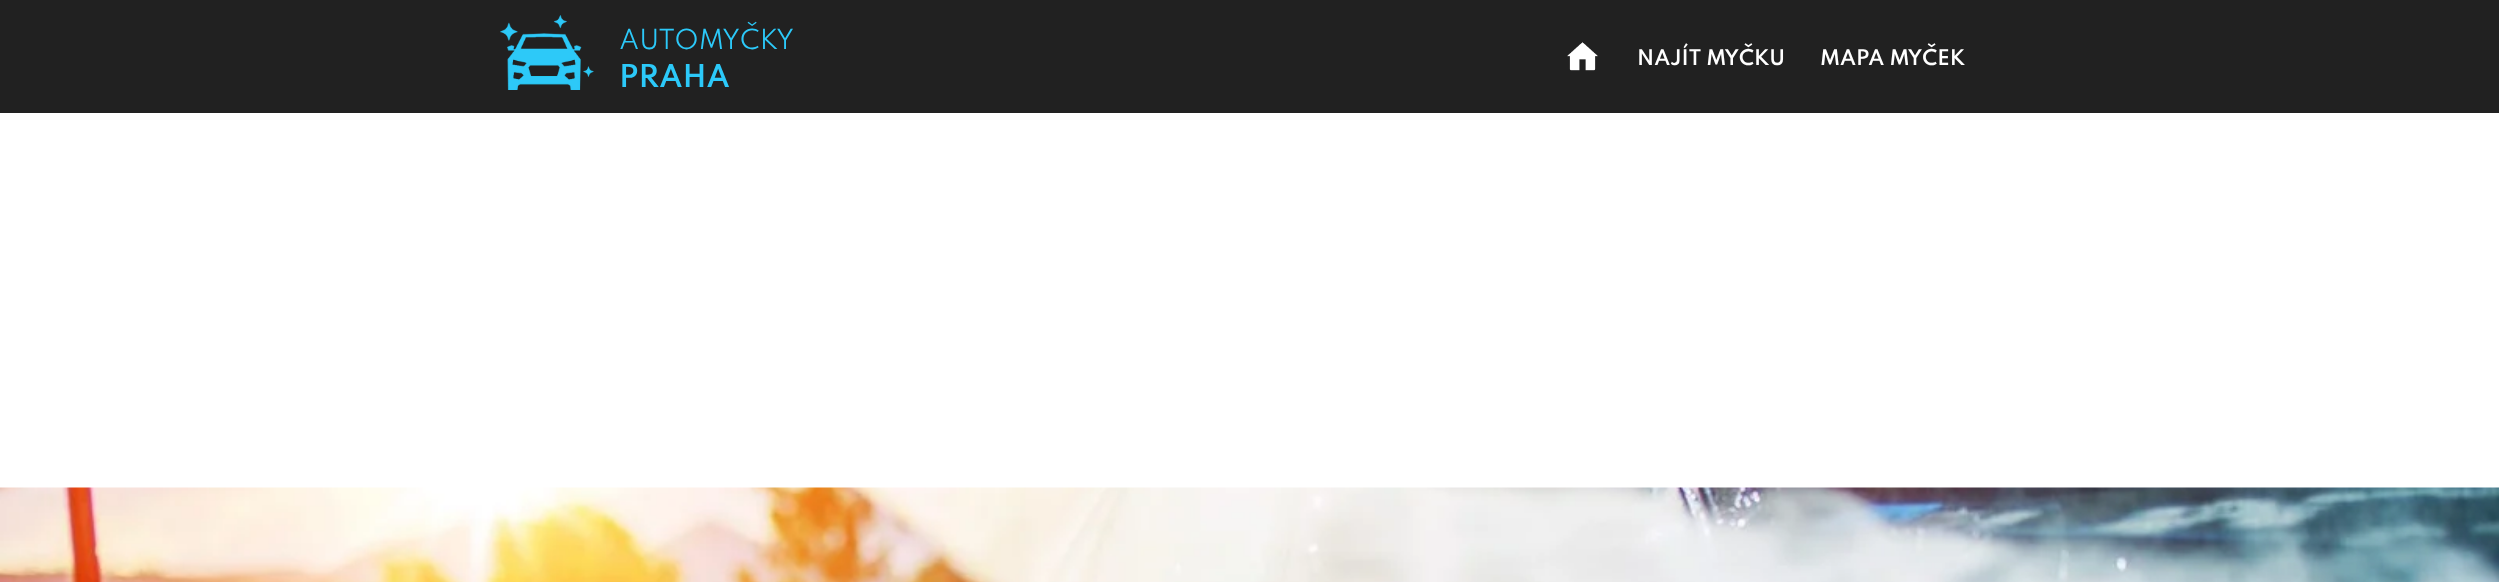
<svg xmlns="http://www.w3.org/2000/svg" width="2499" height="582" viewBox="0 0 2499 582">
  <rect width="100%" height="100%" fill="#ffffff"/>
  <rect x="0" y="0" width="2499" height="113" fill="#212121"/>
  <image x="500" y="15" width="94" height="75" href="img1.png"/>
  <text x="619" y="49" font-family="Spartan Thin" font-size="24.5" fill="#2cc9f9">AUTOMYČKY</text>
  <text x="619" y="87" font-family="Spartan Thin" font-size="28" font-weight="600" fill="#2cc9f9">PRAHA</text>
  <image x="1567" y="42" width="31" height="29" href="img2.png"/>
  <text x="1637" y="65" font-family="Spartan Thin" font-size="19.25" font-weight="600" fill="#ffffff">NAJÍT MYČKU</text>
  <text x="1820" y="65" font-family="Spartan Thin" font-size="19.25" font-weight="600" fill="#ffffff">MAPA MYČEK</text>
  <image x="0" y="487" width="2499" height="95" href="img3.png"/>
</svg>
